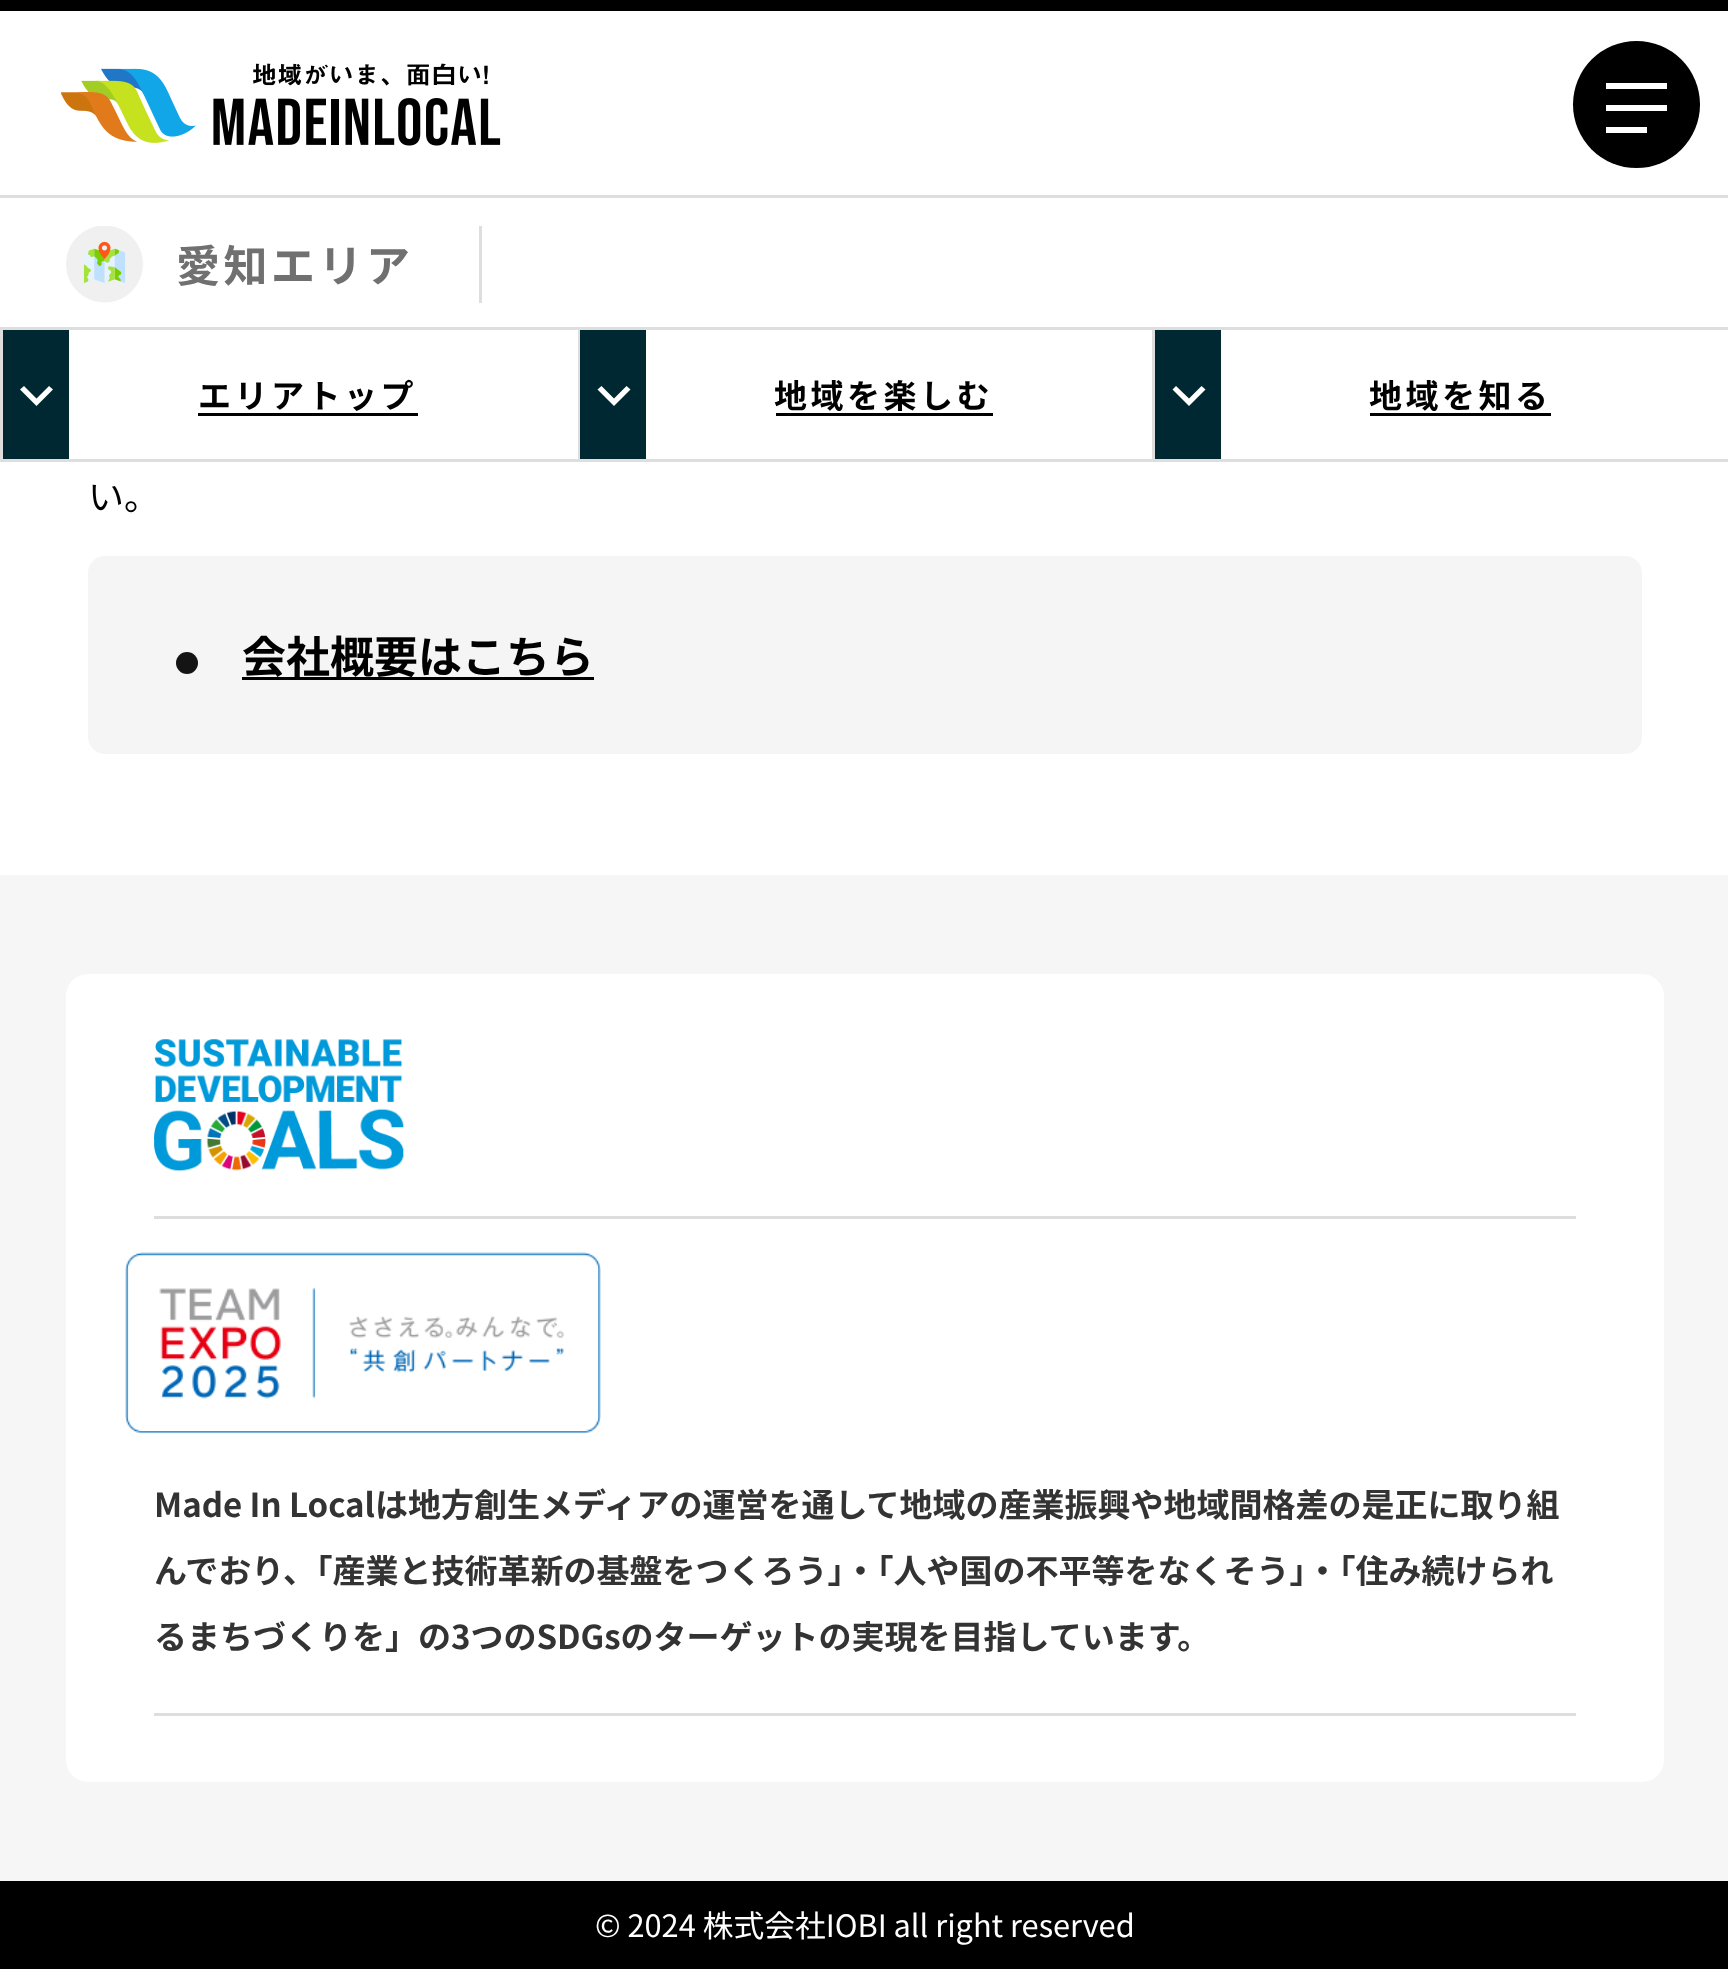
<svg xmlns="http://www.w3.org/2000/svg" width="1728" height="1980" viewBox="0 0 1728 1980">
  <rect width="100%" height="100%" fill="#ffffff"/>
  <rect x="0" y="0" width="1728" height="11" fill="#000000"/>
  <rect x="0" y="195" width="1728" height="3" fill="#dedede"/>
  <image x="61" y="63" width="440" height="83" href="img1.png"/>
  <circle cx="1636.5" cy="104.5" r="63.5" fill="#000000"/>
  <rect x="1606" y="83" width="61" height="6" fill="#ffffff"/>
  <rect x="1606" y="105" width="61" height="6" fill="#ffffff"/>
  <rect x="1606" y="127" width="41" height="6" fill="#ffffff"/>
  <rect x="0" y="327" width="1728" height="3" fill="#dedede"/>
  <rect x="479" y="226" width="3" height="77" fill="#dedede"/>
  <image x="66" y="226" width="77" height="77" href="img2.png"/>
  <text x="176" y="282" font-family="Noto Sans JP" font-size="44" font-weight="bold" letter-spacing="3.5" fill="#707070">愛知エリア</text>
  <rect x="0" y="459" width="1728" height="3" fill="#dedede"/>
  <rect x="0" y="330" width="3" height="129" fill="#dedede"/>
  <rect x="3" y="330" width="66" height="129" fill="#002832"/>
  <path d="M53 389.5L49 386L36.5 398.5L24 386L20 389.5L36.5 406Z" fill="#ffffff"/>
  <text x="198" y="408" font-family="Noto Sans JP" font-size="33" font-weight="bold" letter-spacing="3.5" fill="#000000">エリアトップ</text>
  <rect x="198" y="413" width="220" height="3" fill="#000000"/>
  <rect x="578" y="330" width="2" height="129" fill="#dedede"/>
  <rect x="580" y="330" width="66" height="129" fill="#002832"/>
  <path d="M630.5 389.5L626.5 386L614 398.5L601.5 386L597.5 389.5L614 406Z" fill="#ffffff"/>
  <text x="774" y="408" font-family="Noto Sans JP" font-size="33" font-weight="bold" letter-spacing="3.5" fill="#000000">地域を楽しむ</text>
  <rect x="776" y="413" width="217" height="3" fill="#000000"/>
  <rect x="1152" y="330" width="3" height="129" fill="#dedede"/>
  <rect x="1155" y="330" width="66" height="129" fill="#002832"/>
  <path d="M1205.5 389.5L1201.5 386L1189 398.5L1176 386L1172.5 389.5L1189 406Z" fill="#ffffff"/>
  <text x="1369" y="408" font-family="Noto Sans JP" font-size="33" font-weight="bold" letter-spacing="3.5" fill="#000000">地域を知る</text>
  <rect x="1370" y="413" width="181" height="3" fill="#000000"/>
  <text x="88" y="510" font-family="Noto Sans JP" font-size="36" fill="#000000">い。</text>
  <rect x="88" y="556" width="1554" height="198" rx="17" fill="#f5f5f5"/>
  <circle cx="187" cy="663" r="11" fill="#141414"/>
  <rect x="242" y="677" width="352" height="3" fill="#000000"/>
  <text x="242" y="673" font-family="Noto Sans JP" font-size="44" font-weight="bold" fill="#000000">会社概要はこちら</text>
  <rect x="0" y="875" width="1728" height="1006" fill="#f6f6f6"/>
  <rect x="66" y="974" width="1598" height="808" rx="22" fill="#ffffff"/>
  <image x="154" y="1039" width="250" height="133" href="img3.png"/>
  <rect x="154" y="1216" width="1422" height="3" fill="#dedede"/>
  <image x="125" y="1252" width="476" height="182" href="img4.png"/>
  <rect x="154" y="1713" width="1422" height="3" fill="#dedede"/>
  <text x="154" y="1517" font-family="Noto Sans JP" font-size="33" font-weight="bold" fill="#333333">Made In Localは地方創生メディアの運営を通して地域の産業振興や地域間格差の是正に取り組</text>
  <text x="154" y="1583" font-family="Noto Sans JP" font-size="33" font-weight="bold" fill="#333333">んでおり、「産業と技術革新の基盤をつくろう」・「人や国の不平等をなくそう」・「住み続けられ</text>
  <text x="154" y="1649" font-family="Noto Sans JP" font-size="33" font-weight="bold" fill="#333333">るまちづくりを」の3つのSDGsのターゲットの実現を目指しています。</text>
  <rect x="0" y="1881" width="1728" height="88" fill="#000000"/>
  <text x="595" y="1937" font-family="Noto Sans JP" font-size="30.75" fill="#ffffff">©︎ 2024 株式会社IOBI all right reserved</text>
</svg>
